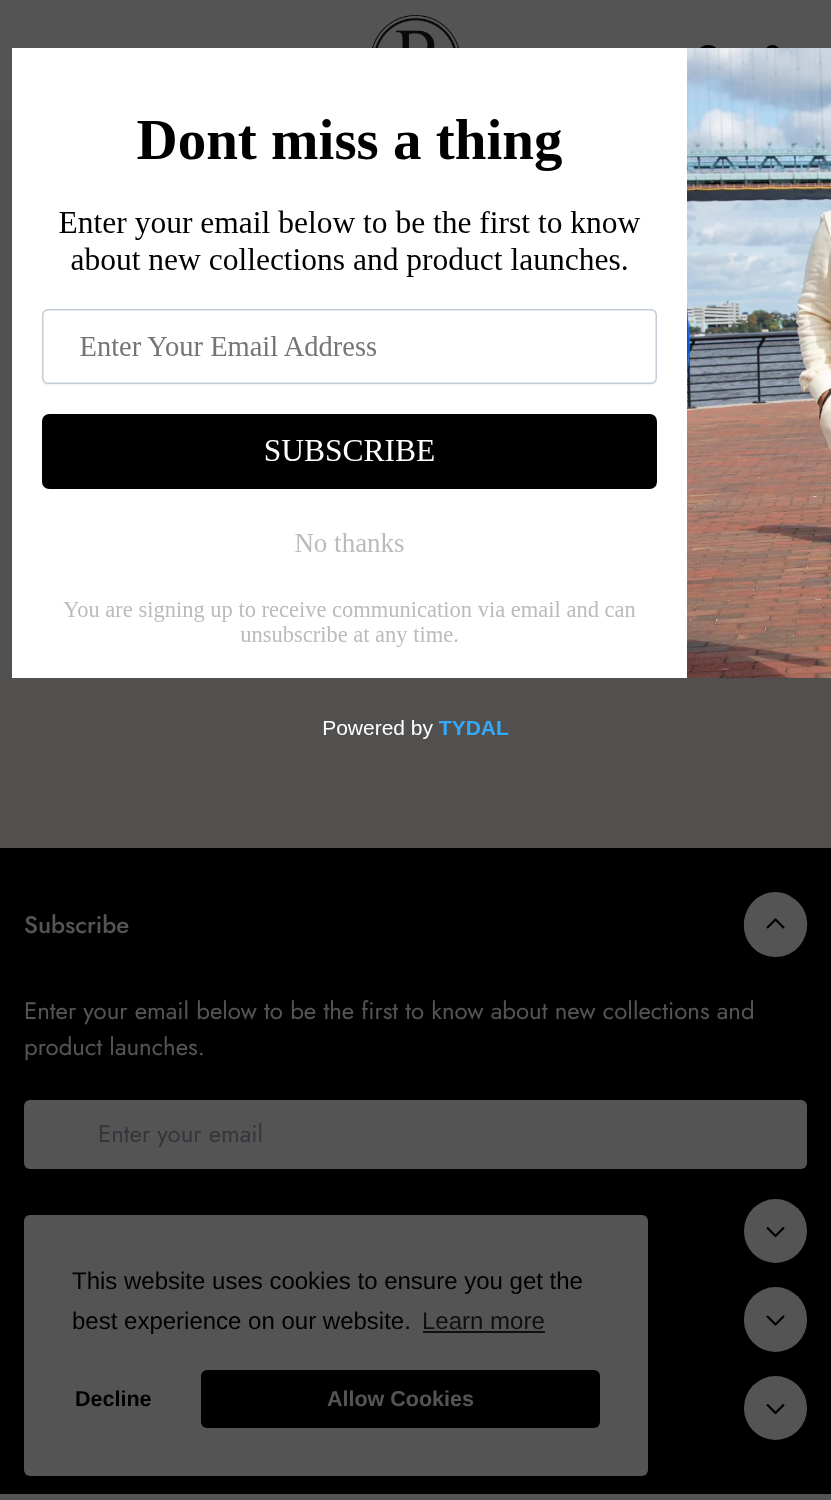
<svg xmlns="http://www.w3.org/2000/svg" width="831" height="1500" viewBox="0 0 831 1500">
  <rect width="100%" height="100%" fill="#ffffff"/>
  <image x="371" y="15" width="89" height="33" href="img2.png"/>
  <image x="700" y="45" width="16" height="3" href="img3.png"/>
  <image x="766" y="45" width="13" height="3" href="img4.png"/>
  <rect x="0" y="120" width="831" height="728" fill="#f5f1ed"/>
  <rect x="0" y="848" width="831" height="646" fill="#000000"/>
  <text x="24" y="933" font-family="Jost" font-size="24" font-weight="500" fill="#ffffff">Subscribe</text>
  <path d="M776 957C807 957 819 915 793 898C788 894 782 892 776 892C744 892 732 934 758 952C763 955 769 957 776 957Z" fill="#ffffff"/>
  <image x="766" y="918" width="19" height="11" href="img5.png"/>
  <text x="24" y="1019" font-family="Jost" font-size="24" fill="#ffffff">Enter your email below to be the first to know about new collections and</text>
  <text x="24" y="1055" font-family="Jost" font-size="24" fill="#ffffff">product launches.</text>
  <rect x="24" y="1100" width="783" height="69" rx="6" fill="#ffffff"/>
  <text x="98" y="1142" font-family="Jost" font-size="24" fill="#9ca3af">Enter your email</text>
  <rect x="744" y="1199" width="63" height="64" rx="31.5" fill="#ffffff"/>
  <image x="766" y="1227" width="19" height="11" href="img6.png"/>
  <rect x="744" y="1287" width="63" height="65" rx="31.5" fill="#ffffff"/>
  <image x="766" y="1315" width="19" height="11" href="img7.png"/>
  <rect x="744" y="1376" width="63" height="64" rx="31.5" fill="#ffffff"/>
  <image x="766" y="1404" width="19" height="11" href="img6.png"/>
  <rect x="24" y="1215" width="624" height="261" rx="6" fill="#ffffff"/>
  <text x="72" y="1289" font-family="Liberation Sans" font-size="24" fill="#000000">This website uses cookies to ensure you get the</text>
  <text x="72" y="1329" font-family="Liberation Sans" font-size="24" fill="#000000">best experience on our website.</text>
  <text x="422" y="1329" font-family="Liberation Sans" font-size="24" fill="#333333">Learn more</text>
  <rect x="423" y="1331" width="122" height="2" fill="#333333"/>
  <text x="75" y="1406" font-family="Liberation Sans" font-size="21.5" font-weight="bold" fill="#000000">Decline</text>
  <rect x="201" y="1370" width="399" height="58" rx="6" fill="#000000"/>
  <text x="327" y="1406" font-family="Liberation Sans" font-size="21.5" font-weight="bold" fill="#ffffff">Allow Cookies</text>
  <image x="0" y="0" width="831" height="1500" href="img1.png"/>
</svg>
